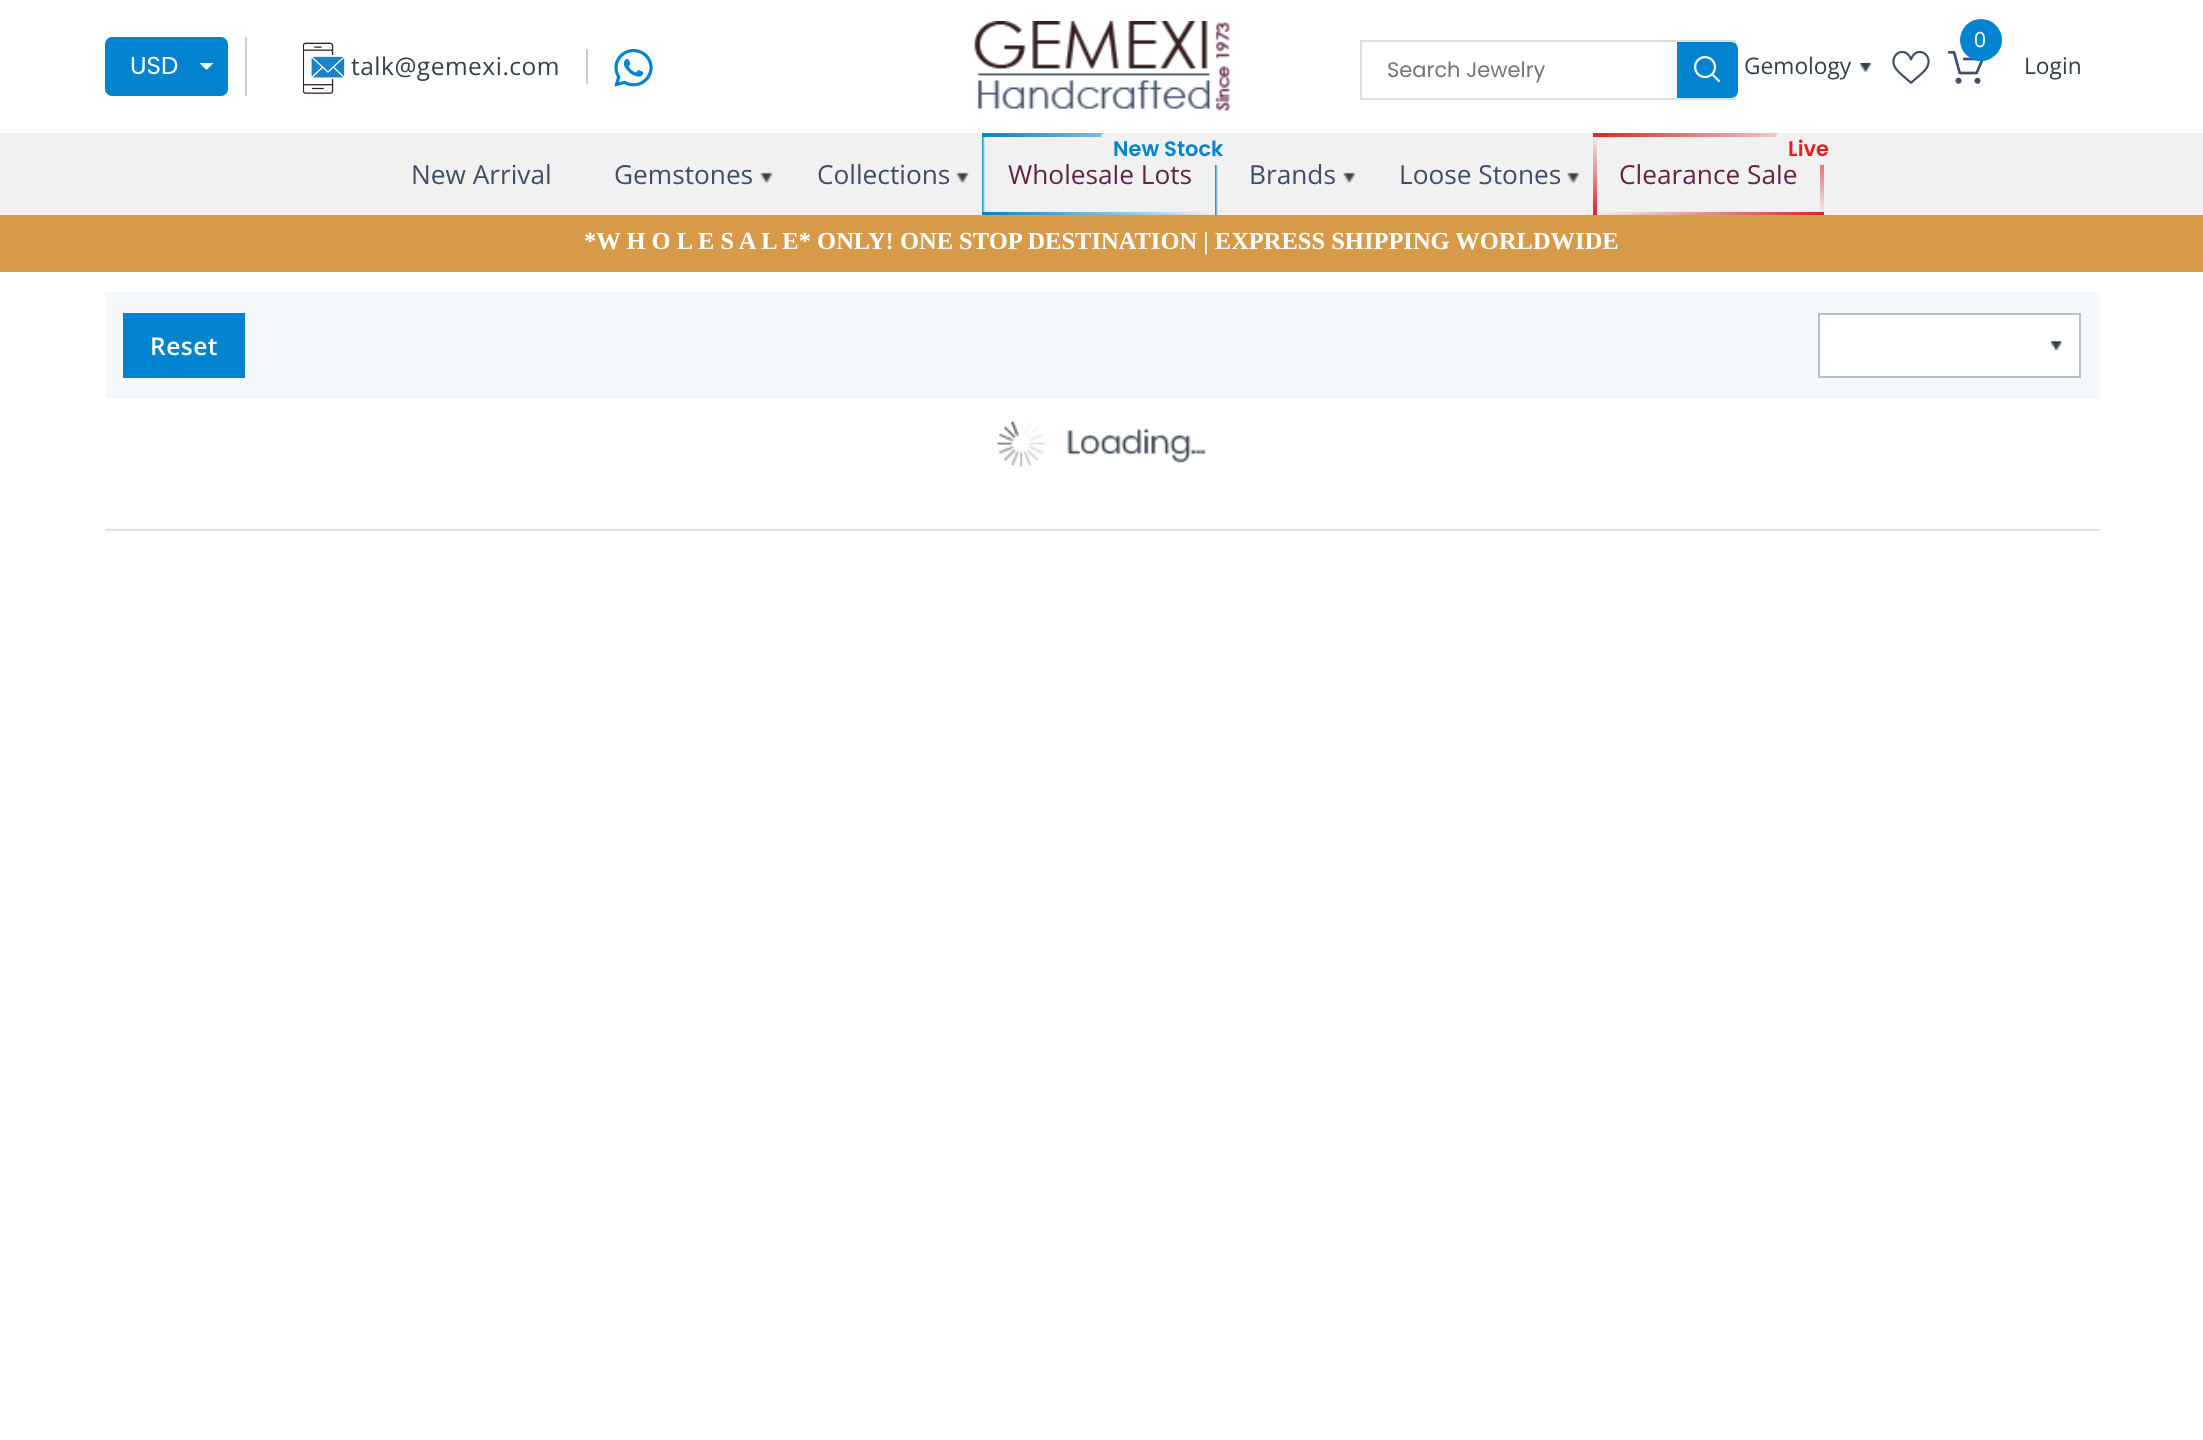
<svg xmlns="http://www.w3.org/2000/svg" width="2203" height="1440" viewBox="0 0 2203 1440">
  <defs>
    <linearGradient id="g1" gradientUnits="userSpaceOnUse" x1="1218" y1="135" x2="982" y2="135"><stop offset="0" stop-color="#f1f1f1"/><stop offset="1" stop-color="#0183cf"/></linearGradient>
    <linearGradient id="g2" gradientUnits="userSpaceOnUse" x1="1218" y1="174" x2="1215" y2="174"><stop offset="0" stop-color="#0183cf" stop-opacity="0"/><stop offset="1" stop-color="#0183cf"/></linearGradient>
    <linearGradient id="g3" gradientUnits="userSpaceOnUse" x1="1218" y1="214" x2="982" y2="214"><stop offset="0" stop-color="#0183cf" stop-opacity="0"/><stop offset="1" stop-color="#0183cf"/></linearGradient>
    <linearGradient id="g4" gradientUnits="userSpaceOnUse" x1="985" y1="174" x2="982" y2="174"><stop offset="0" stop-color="#0183cf" stop-opacity="0"/><stop offset="1" stop-color="#0183cf"/></linearGradient>
    <linearGradient id="g5" gradientUnits="userSpaceOnUse" x1="1824" y1="135" x2="1593" y2="135"><stop offset="0" stop-color="#f1f1f1"/><stop offset="1" stop-color="#d92626"/></linearGradient>
    <linearGradient id="g6" gradientUnits="userSpaceOnUse" x1="1822" y1="215" x2="1822" y2="133"><stop offset="0" stop-color="#d92626" stop-opacity="0"/><stop offset="1" stop-color="#d92626"/></linearGradient>
    <linearGradient id="g7" gradientUnits="userSpaceOnUse" x1="1593" y1="214" x2="1824" y2="214"><stop offset="0" stop-color="#d92626" stop-opacity="0"/><stop offset="1" stop-color="#d92626"/></linearGradient>
    <linearGradient id="g8" gradientUnits="userSpaceOnUse" x1="1594" y1="133" x2="1594" y2="215"><stop offset="0" stop-color="#d92626" stop-opacity="0"/><stop offset="1" stop-color="#d92626"/></linearGradient>
  </defs>
  <rect width="100%" height="100%" fill="#ffffff"/>
  <rect x="245" y="37" width="2" height="59" fill="#cccccc"/>
  <rect x="105" y="37" width="123" height="59" rx="7" fill="#0183cf"/>
  <text x="130" y="74" font-family="Poppins" font-size="24.5" fill="#ffffff">USD</text>
  <path d="M199.5 63H213.5L206.5 70Z" fill="#ffffff"/>
  <image x="303" y="42" width="42" height="52" href="img1.png"/>
  <text x="351" y="75" font-family="Open Sans" font-size="24.5" letter-spacing="0.5" fill="#35404e">talk@gemexi.com</text>
  <rect x="586" y="49" width="2" height="35" fill="#cccccc"/>
  <image x="614" y="49" width="39" height="38" href="img2.png"/>
  <image x="974" y="21" width="256" height="91" href="img3.png"/>
  <rect x="1361" y="41" width="374" height="58" fill="none" stroke="#dcdddc" stroke-width="2"/>
  <text x="1387" y="77" font-family="Poppins" font-size="21" fill="#757575">Search Jewelry</text>
  <path d="M1677 42H1731C1735 42 1738 45 1738 49V91C1738 95 1735 98 1731 98H1677Z" fill="#0183cf"/>
  <image x="1694" y="56" width="26" height="26" href="img4.png"/>
  <image x="1948" y="51" width="36" height="33" href="img5.png"/>
  <circle cx="1981" cy="40" r="21" fill="#0183cf"/>
  <text x="1974" y="47" font-family="Open Sans" font-size="21" fill="#ffffff">0</text>
  <text x="1744" y="74" font-family="Open Sans" font-size="22.75" fill="#35404e">Gemology</text>
  <image x="1859" y="63" width="12" height="10" href="img6.png"/>
  <image x="1892" y="51" width="38" height="33" href="img7.png"/>
  <text x="2024" y="74" font-family="Open Sans" font-size="22.75" fill="#35404e">Login</text>
  <rect x="0" y="133" width="2203" height="82" fill="#f1f1f1"/>
  <text x="411" y="184" font-family="Open Sans" font-size="26.25" fill="#404e68">New Arrival</text>
  <text x="614" y="184" font-family="Open Sans" font-size="26.25" fill="#404e68">Gemstones</text>
  <image x="760" y="172" width="13" height="11" href="img8.png"/>
  <text x="817" y="184" font-family="Open Sans" font-size="26.25" fill="#404e68">Collections</text>
  <image x="956" y="172" width="13" height="11" href="img9.png"/>
  <rect x="982" y="133" width="123" height="4" fill="url(#g1)"/>
  <text x="1008" y="184" font-family="Open Sans" font-size="26.25" fill="#642346">Wholesale Lots</text>
  <rect x="1101" y="133" width="135" height="32" rx="4" fill="#f1f1f1"/>
  <text x="1113" y="156" font-family="Poppins" font-size="21" font-weight="600" fill="#0183cf">New Stock</text>
  <rect x="1215" y="165" width="3" height="50" fill="url(#g2)"/>
  <rect x="982" y="212" width="236" height="3" fill="url(#g3)"/>
  <rect x="982" y="133" width="3" height="82" fill="url(#g4)"/>
  <text x="1249" y="184" font-family="Open Sans" font-size="26.25" fill="#404e68">Brands</text>
  <image x="1343" y="172" width="12" height="11" href="img10.png"/>
  <text x="1399" y="184" font-family="Open Sans" font-size="26.25" fill="#404e68">Loose Stones</text>
  <image x="1567" y="172" width="12" height="11" href="img11.png"/>
  <rect x="1593" y="133" width="187" height="4" fill="url(#g5)"/>
  <text x="1619" y="184" font-family="Open Sans" font-size="26.25" fill="#642346">Clearance Sale</text>
  <rect x="1776" y="133" width="65" height="32" rx="4" fill="#f1f1f1"/>
  <text x="1788" y="156" font-family="Poppins" font-size="21" font-weight="600" fill="#ec1b22">Live</text>
  <rect x="1820" y="165" width="4" height="50" fill="url(#g6)"/>
  <rect x="1593" y="212" width="231" height="3" fill="url(#g7)"/>
  <rect x="1593" y="133" width="4" height="82" fill="url(#g8)"/>
  <rect x="0" y="215" width="2203" height="57" fill="#d69a48"/>
  <text x="584" y="249" font-family="Liberation Serif" font-size="24.5" font-weight="bold" fill="#ffffff">*W H O L E S A L E* ONLY! ONE STOP DESTINATION | EXPRESS SHIPPING WORLDWIDE</text>
  <rect x="105" y="529" width="1995" height="2" fill="#dbe4e8"/>
  <rect x="105" y="292" width="1995" height="107" fill="#f5f8fa"/>
  <rect x="123" y="313" width="122" height="65" fill="#0183cf"/>
  <text x="150" y="355" font-family="Open Sans" font-size="24.5" font-weight="600" letter-spacing="0.5" fill="#ffffff">Reset</text>
  <rect x="1820" y="315" width="259" height="61" fill="#ffffff"/>
  <image x="2051" y="341" width="11" height="9" href="img12.png"/>
  <rect x="1819" y="314" width="261" height="63" fill="none" stroke="#b9c0ca" stroke-width="2"/>
  <image x="997" y="421" width="209" height="47" href="img13.png"/>
</svg>
